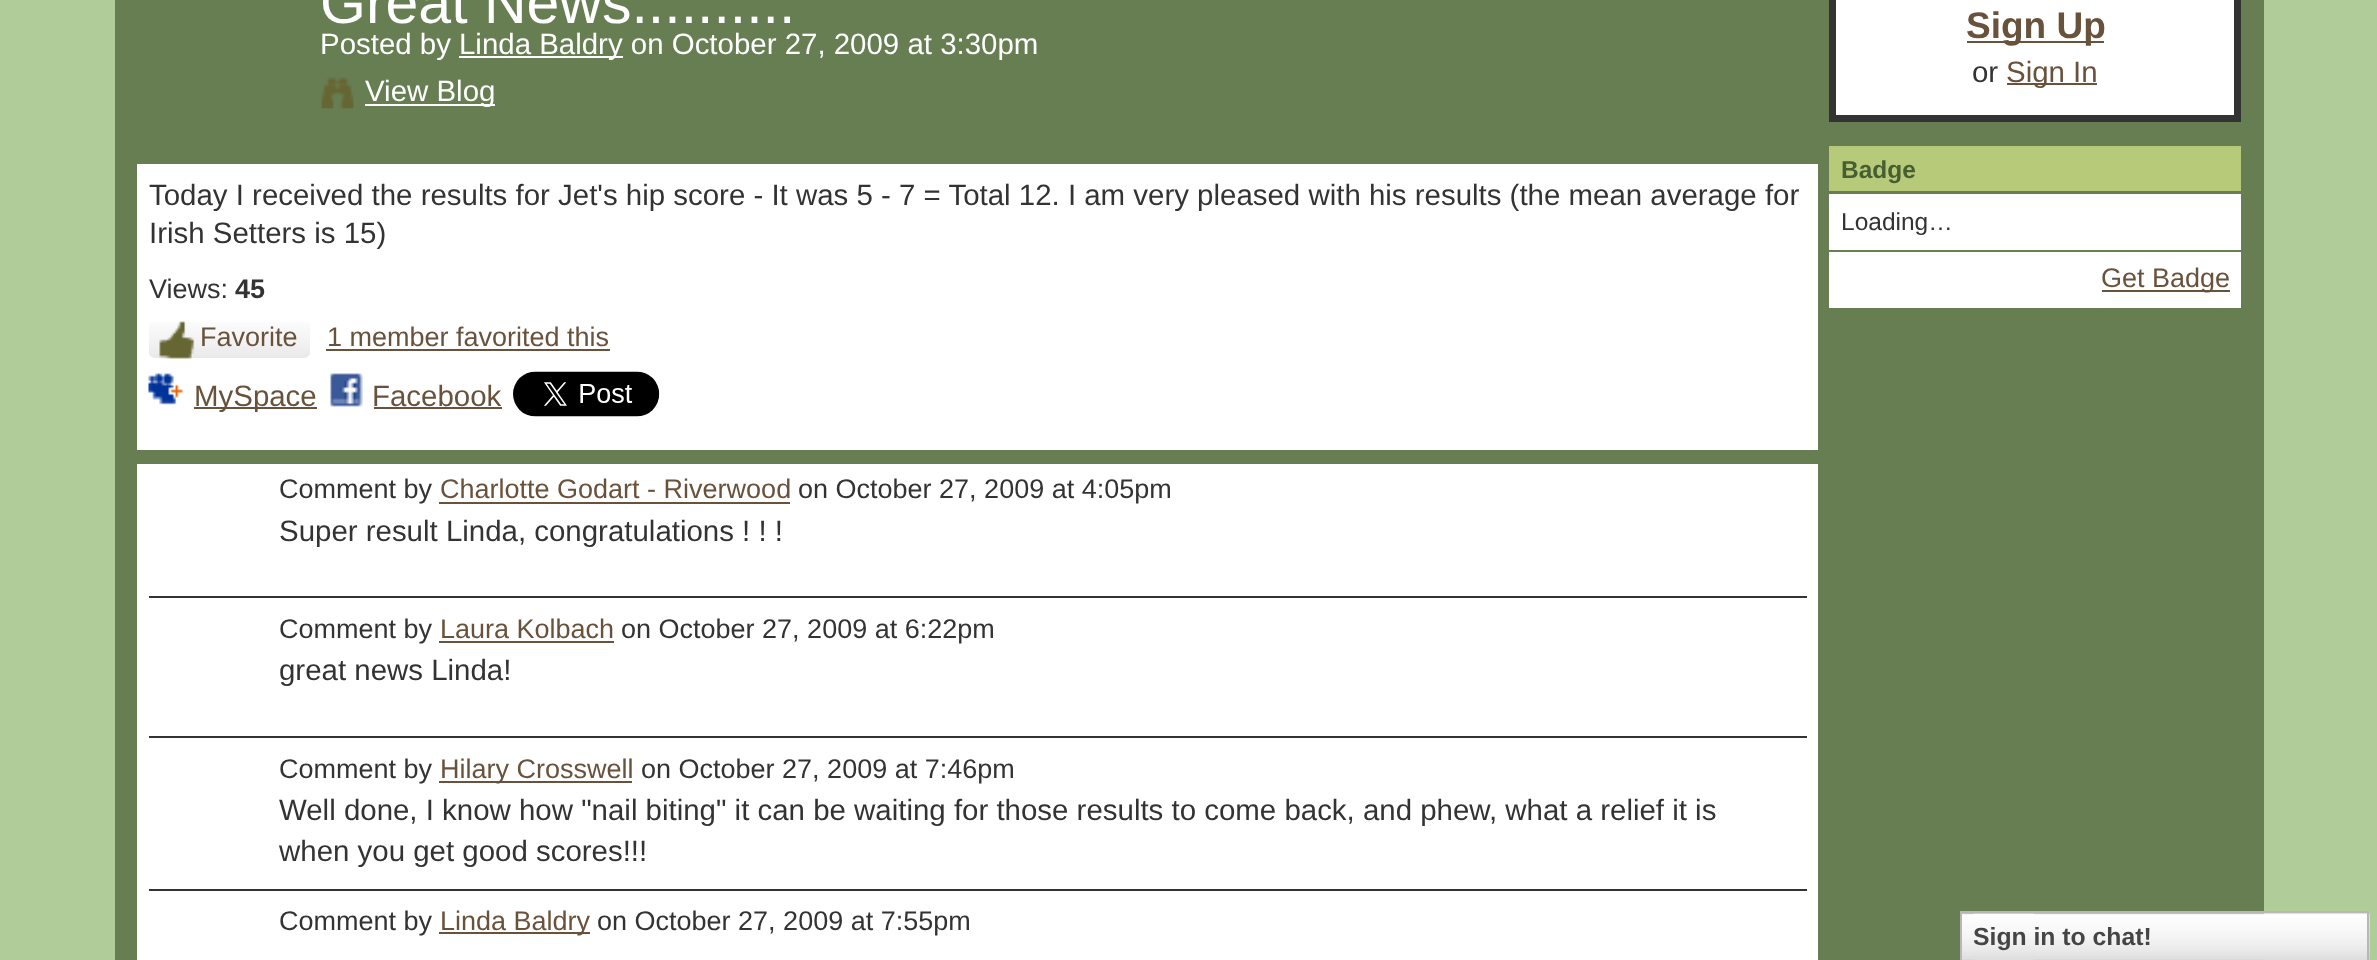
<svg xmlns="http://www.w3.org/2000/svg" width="2377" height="960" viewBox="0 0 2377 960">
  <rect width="100%" height="100%" fill="#afcc99"/>
  <rect x="115" y="0" width="2149" height="960" fill="#677e52"/>
  <text x="320" y="23" font-family="Liberation Sans" font-size="59" fill="#ffffff">Great News..........</text>
  <text x="320" y="54" font-family="Liberation Sans" font-size="29.45" fill="#ffffff">Posted by</text>
  <rect x="459" y="56" width="164" height="2" fill="#ffffff"/>
  <text x="459" y="54" font-family="Liberation Sans" font-size="29.45" fill="#ffffff">Linda Baldry on October 27, 2009 at 3:30pm</text>
  <image x="321" y="77" width="33" height="32" href="img1.png"/>
  <rect x="365" y="104" width="130" height="2" fill="#ffffff"/>
  <text x="365" y="101" font-family="Liberation Sans" font-size="29.45" fill="#ffffff">View Blog</text>
  <rect x="137" y="164" width="1681" height="286" fill="#ffffff"/>
  <text x="149" y="205" font-family="Liberation Sans" font-size="29.45" fill="#333333">Today I received the results for Jet's hip score - It was 5 - 7 = Total 12. I am very pleased with his results (the mean average for</text>
  <text x="149" y="243" font-family="Liberation Sans" font-size="29.45" fill="#333333">Irish Setters is 15)</text>
  <text x="149" y="298" font-family="Liberation Sans" font-size="27" fill="#333333">Views:</text>
  <text x="235" y="298" font-family="Liberation Sans" font-size="27" font-weight="bold" fill="#333333">45</text>
  <image x="149" y="322" width="161" height="36" href="img2.png"/>
  <image x="159" y="321" width="36" height="38" href="img3.png"/>
  <text x="200" y="346" font-family="Liberation Sans" font-size="27" fill="#69523b">Favorite</text>
  <text x="327" y="346" font-family="Liberation Sans" font-size="27" fill="#69523b">1 member favorited this</text>
  <rect x="326" y="349" width="284" height="2" fill="#69523b"/>
  <image x="148" y="373" width="35" height="32" href="img4.png"/>
  <rect x="194" y="407" width="123" height="2" fill="#69523b"/>
  <text x="194" y="406" font-family="Liberation Sans" font-size="29.45" fill="#69523b">MySpace</text>
  <image x="330" y="373" width="33" height="34" href="img5.png"/>
  <text x="372" y="406" font-family="Liberation Sans" font-size="29.45" fill="#69523b">Facebook</text>
  <rect x="374" y="407" width="128" height="2" fill="#69523b"/>
  <image x="513" y="371" width="147" height="46" href="img6.png"/>
  <rect x="137" y="464" width="1681" height="496" fill="#ffffff"/>
  <rect x="149" y="596" width="1658" height="2" fill="#333333"/>
  <text x="279" y="498" font-family="Liberation Sans" font-size="27" fill="#333333">Comment by</text>
  <text x="440" y="498" font-family="Liberation Sans" font-size="27" fill="#69523b">Charlotte Godart - Riverwood</text>
  <rect x="439" y="502" width="351" height="2" fill="#69523b"/>
  <text x="798" y="498" font-family="Liberation Sans" font-size="27" fill="#333333">on October 27, 2009 at 4:05pm</text>
  <text x="279" y="541" font-family="Liberation Sans" font-size="29.45" fill="#333333">Super result Linda, congratulations ! ! !</text>
  <rect x="149" y="736" width="1658" height="2" fill="#333333"/>
  <text x="279" y="638" font-family="Liberation Sans" font-size="27" fill="#333333">Comment by</text>
  <text x="440" y="638" font-family="Liberation Sans" font-size="27" fill="#69523b">Laura Kolbach</text>
  <rect x="439" y="641" width="175" height="2" fill="#69523b"/>
  <text x="621" y="638" font-family="Liberation Sans" font-size="27" fill="#333333">on October 27, 2009 at 6:22pm</text>
  <text x="279" y="680" font-family="Liberation Sans" font-size="29.45" fill="#333333">great news Linda!</text>
  <rect x="149" y="889" width="1658" height="2" fill="#333333"/>
  <text x="279" y="778" font-family="Liberation Sans" font-size="27" fill="#333333">Comment by</text>
  <rect x="439" y="781" width="193" height="2" fill="#69523b"/>
  <text x="440" y="778" font-family="Liberation Sans" font-size="27" fill="#69523b">Hilary Crosswell</text>
  <text x="641" y="778" font-family="Liberation Sans" font-size="27" fill="#333333">on October 27, 2009 at 7:46pm</text>
  <text x="279" y="820" font-family="Liberation Sans" font-size="29.45" fill="#333333">Well done, I know how "nail biting" it can be waiting for those results to come back, and phew, what a relief it is</text>
  <text x="279" y="861" font-family="Liberation Sans" font-size="29.45" fill="#333333">when you get good scores!!!</text>
  <text x="279" y="930" font-family="Liberation Sans" font-size="27" fill="#333333">Comment by</text>
  <rect x="439" y="932" width="151" height="2" fill="#69523b"/>
  <text x="440" y="930" font-family="Liberation Sans" font-size="27" fill="#69523b">Linda Baldry</text>
  <text x="597" y="930" font-family="Liberation Sans" font-size="27" fill="#333333">on October 27, 2009 at 7:55pm</text>
  <rect x="1832.5" y="-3.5" width="405" height="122" fill="#ffffff" stroke="#333333" stroke-width="7"/>
  <rect x="1967" y="41" width="137" height="2" fill="#69523b"/>
  <text x="1966" y="38" font-family="Liberation Sans" font-size="37" font-weight="bold" fill="#69523b">Sign Up</text>
  <text x="1972" y="82" font-family="Liberation Sans" font-size="29.45" fill="#333333">or</text>
  <rect x="2007" y="83" width="90" height="2" fill="#69523b"/>
  <text x="2006" y="82" font-family="Liberation Sans" font-size="29.45" fill="#69523b">Sign In</text>
  <rect x="1829" y="146" width="412" height="45" fill="#b6ca79"/>
  <text x="1841" y="178" font-family="Liberation Sans" font-size="24.5" font-weight="bold" fill="#475e32">Badge</text>
  <rect x="1829" y="194" width="412" height="56" fill="#ffffff"/>
  <text x="1841" y="230" font-family="Liberation Sans" font-size="24.5" fill="#333333">Loading…</text>
  <rect x="1829" y="252" width="412" height="56" fill="#ffffff"/>
  <rect x="2102" y="290" width="128" height="2" fill="#69523b"/>
  <text x="2101" y="287" font-family="Liberation Sans" font-size="27" fill="#69523b">Get Badge</text>
  <image x="1962" y="913" width="408" height="47" href="img7.png"/>
  <rect x="1961" y="912" width="407" height="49" fill="none" stroke="#b7b7b7" stroke-width="2"/>
  <image x="1973" y="913" width="61" height="47" href="img8.png"/>
  <text x="1973" y="945" font-family="Liberation Sans" font-size="24.75" font-weight="bold" fill="#454545">Sign in to chat!</text>
</svg>
